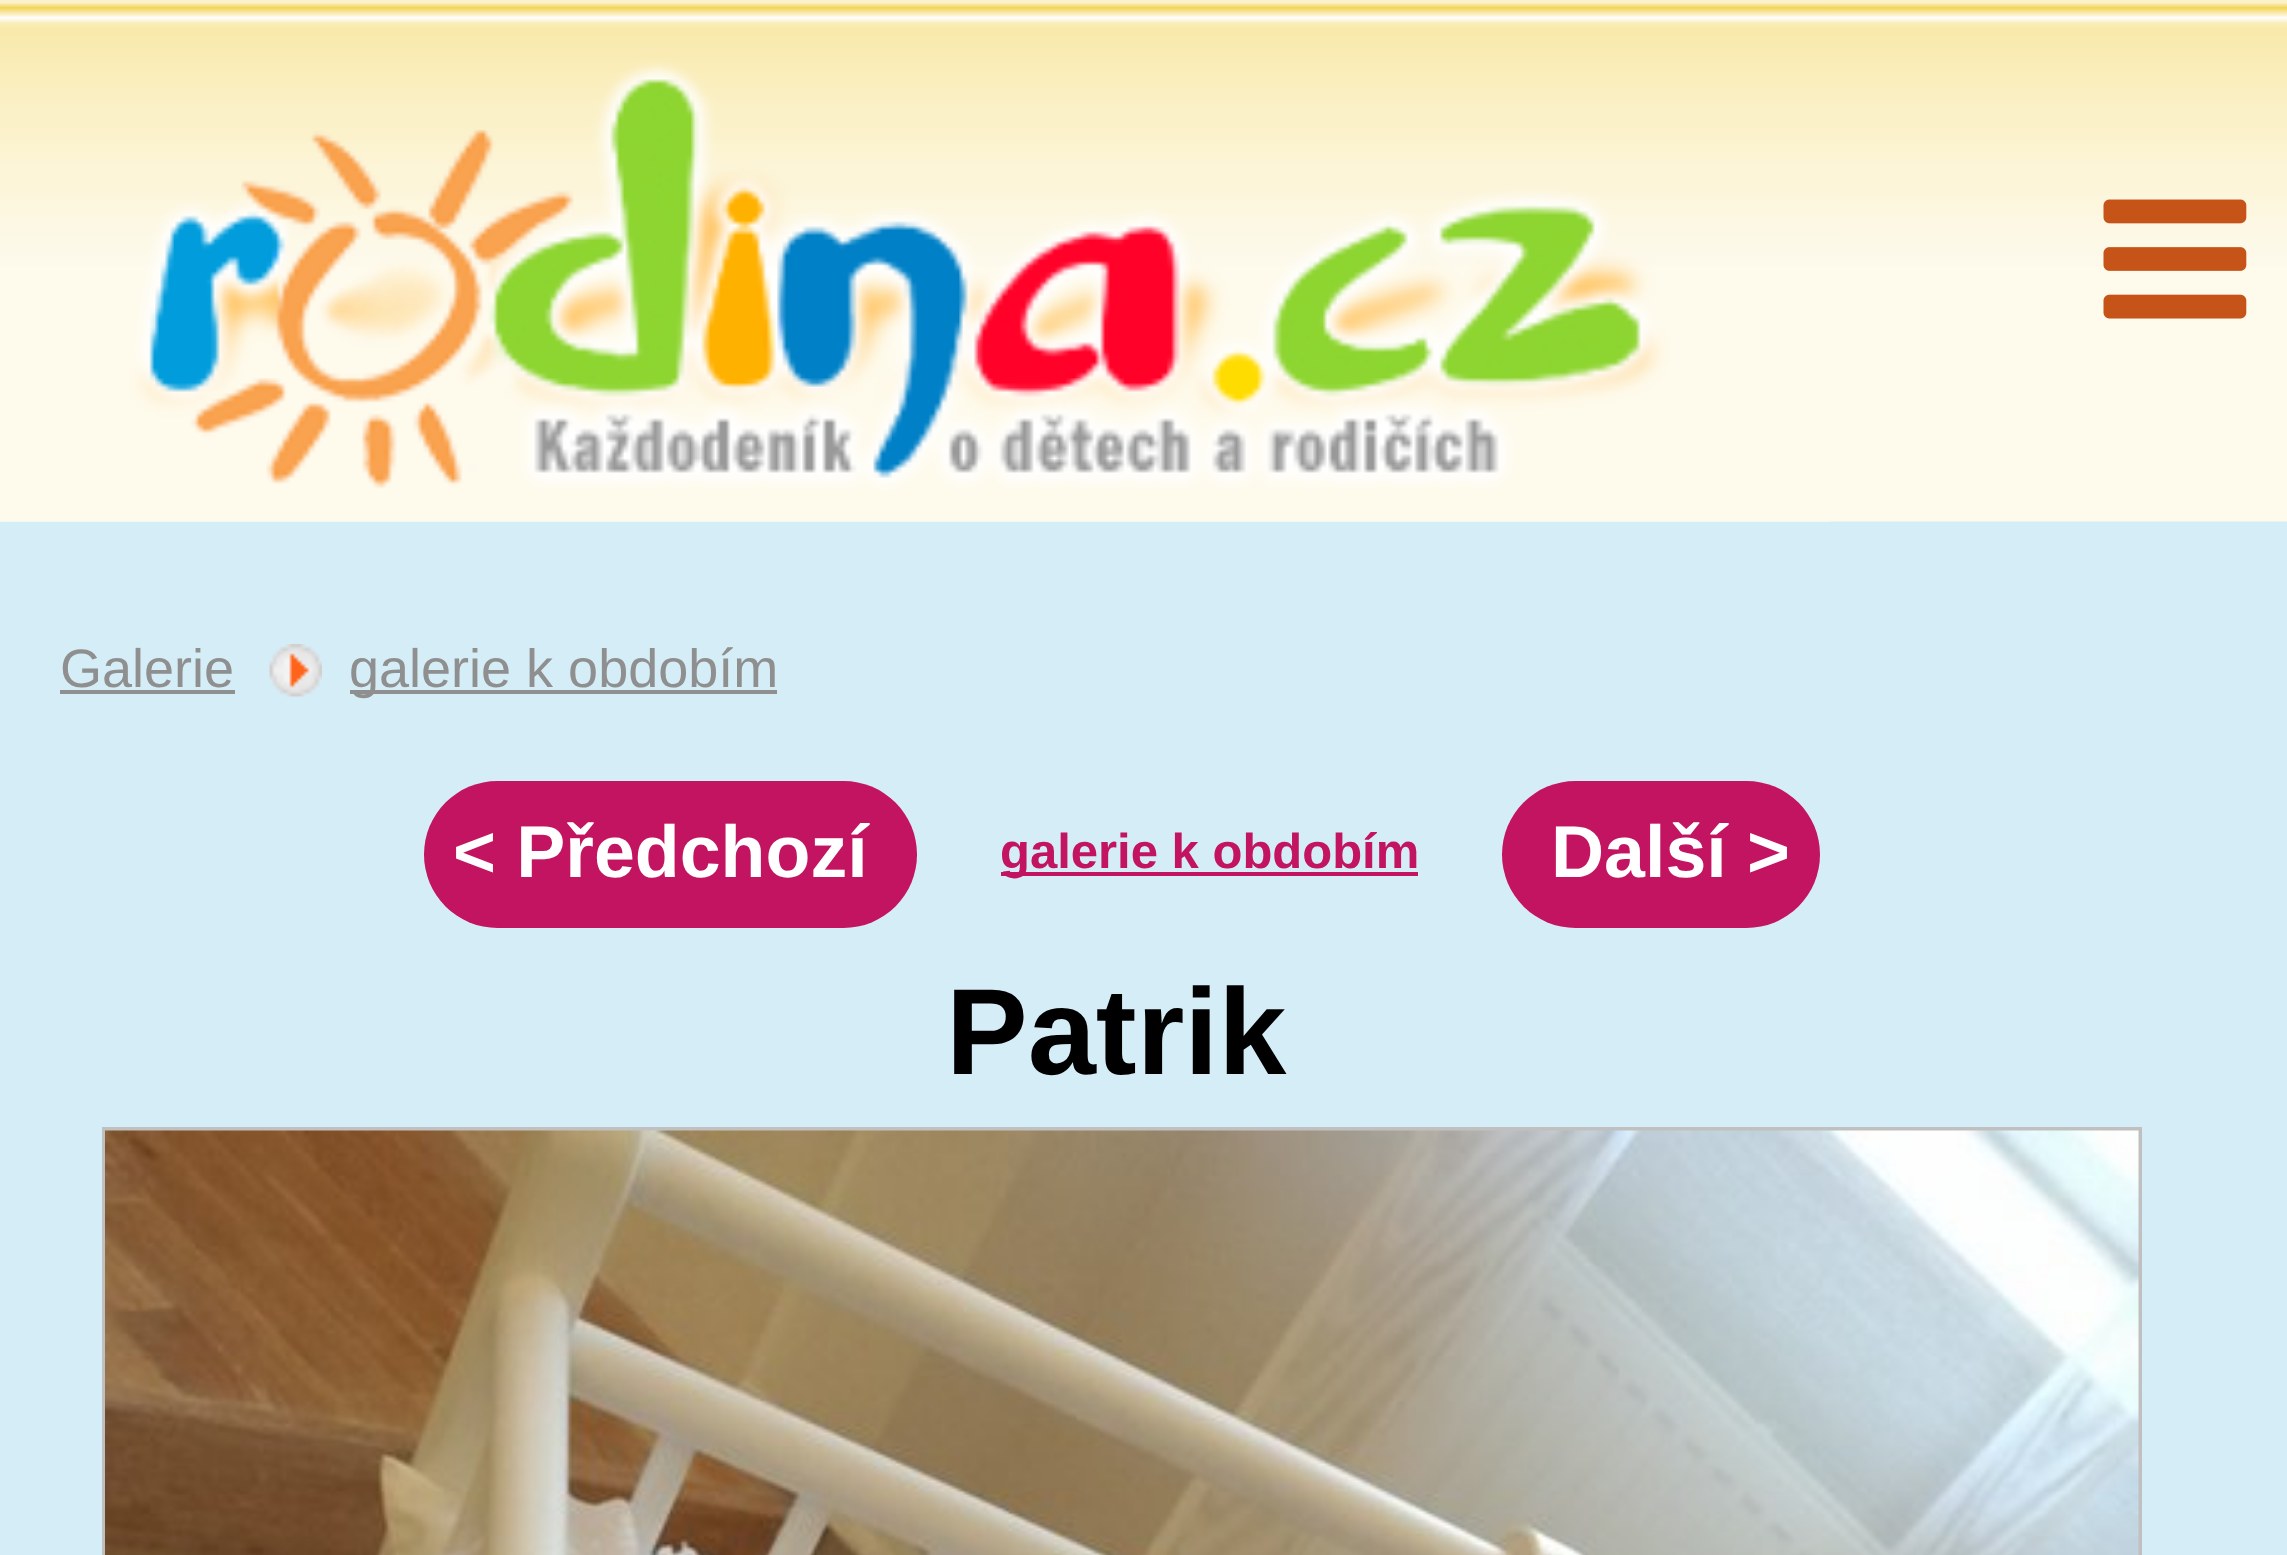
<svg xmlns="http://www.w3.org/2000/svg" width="2287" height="1555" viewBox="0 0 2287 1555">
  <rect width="100%" height="100%" fill="#d4edf7"/>
  <image x="0" y="0" width="2287" height="522" href="img1.png"/>
  <image x="0" y="9" width="1831" height="513" href="img2.png"/>
  <image x="2103" y="199" width="144" height="120" href="img3.png"/>
  <text x="60" y="687" font-family="Liberation Sans" font-size="54" fill="#8f8f8f">Galerie</text>
  <rect x="60" y="690" width="175" height="4" fill="#8f8f8f"/>
  <image x="269" y="644" width="53" height="53" href="img4.png"/>
  <rect x="350" y="690" width="427" height="4" fill="#8f8f8f"/>
  <text x="349" y="687" font-family="Liberation Sans" font-size="54" fill="#8f8f8f">galerie k obdobím</text>
  <rect x="424" y="781" width="493" height="147" rx="73.5" fill="#c21460"/>
  <text x="453" y="877" font-family="Liberation Sans" font-size="73.5" font-weight="bold" fill="#ffffff">&lt; Předchozí</text>
  <rect x="1001" y="872" width="417" height="4" fill="#c21460"/>
  <text x="1000" y="868" font-family="Liberation Sans" font-size="49" font-weight="bold" fill="#c21460">galerie k obdobím</text>
  <rect x="1502" y="781" width="318" height="147" rx="73.5" fill="#c21460"/>
  <text x="1551" y="877" font-family="Liberation Sans" font-size="73.5" font-weight="bold" fill="#ffffff">Další &gt;</text>
  <text x="946" y="1074" font-family="Liberation Sans" font-size="122.5" font-weight="bold" fill="#000000">Patrik</text>
  <rect x="104" y="1129" width="2036" height="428" fill="none" stroke="#c0c0c0" stroke-width="4"/>
  <image x="105" y="1130" width="2034" height="425" href="img5.png"/>
</svg>
